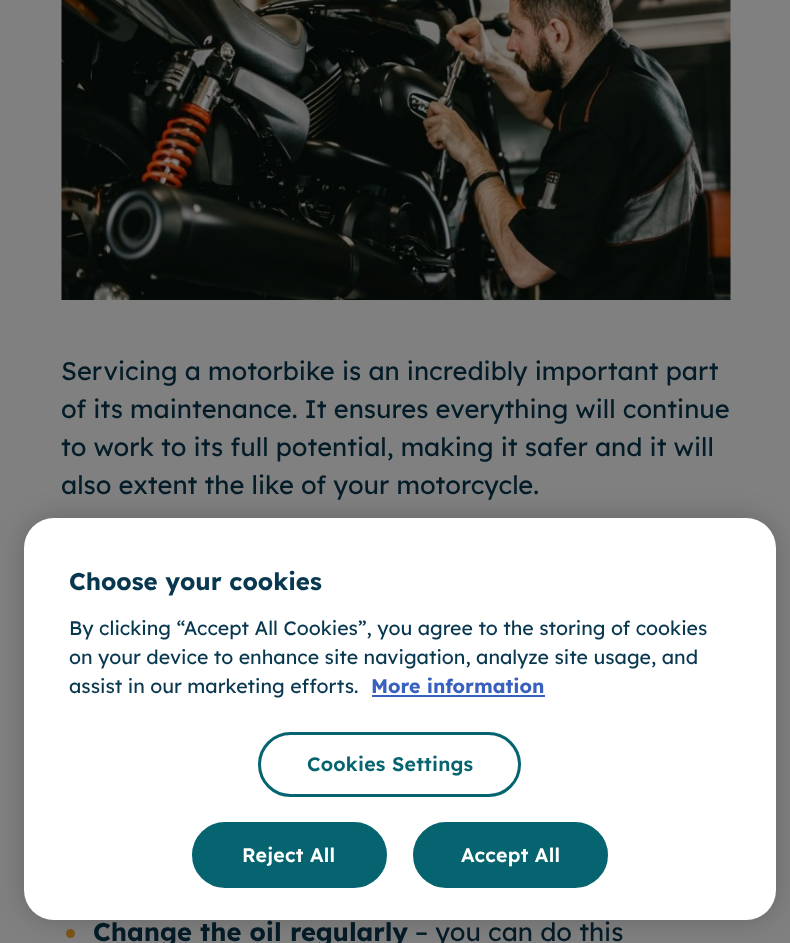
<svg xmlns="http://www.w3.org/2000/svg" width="790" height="943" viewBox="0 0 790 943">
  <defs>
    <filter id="blur1" x="-50%" y="-200%" width="200%" height="500%"><feGaussianBlur stdDeviation="13.5"/></filter>
  </defs>
  <rect width="100%" height="100%" fill="#808080"/>
  <image x="61" y="0" width="670" height="300" href="img1.png"/>
  <text x="61" y="380" font-family="Lexend" font-size="25.5" fill="#041c28">Servicing a motorbike is an incredibly important part</text>
  <text x="61" y="418" font-family="Lexend" font-size="25.5" fill="#041c28">of its maintenance. It ensures everything will continue</text>
  <text x="61" y="456" font-family="Lexend" font-size="25.5" fill="#041c28">to work to its full potential, making it safer and it will</text>
  <text x="61" y="494" font-family="Lexend" font-size="25.5" fill="#041c28">also extent the like of your motorcycle.</text>
  <circle cx="70.5" cy="933.5" r="4.5" fill="#7c5519"/>
  <text x="93" y="941" font-family="Lexend" font-size="25.5" font-weight="bold" fill="#041c28">Change the oil regularly</text>
  <text x="415" y="941" font-family="Lexend" font-size="25.5" fill="#041c28">– you can do this</text>
  <rect x="24" y="518" width="752" height="402" rx="30" fill="#000000" fill-opacity="0.2" filter="url(#blur1)"/>
  <rect x="24" y="518" width="752" height="402" rx="30" fill="#ffffff"/>
  <text x="69" y="590" font-family="Lexend" font-size="24" font-weight="bold" fill="#083750">Choose your cookies</text>
  <text x="69" y="635" font-family="Lexend" font-size="19.5" fill="#083750">By clicking “Accept All Cookies”, you agree to the storing of cookies</text>
  <text x="69" y="664" font-family="Lexend" font-size="19.5" fill="#083750">on your device to enhance site navigation, analyze site usage, and</text>
  <text x="69" y="693" font-family="Lexend" font-size="19.5" fill="#083750">assist in our marketing efforts.</text>
  <text x="371" y="693" font-family="Lexend" font-size="19.5" font-weight="bold" fill="#3860be">More information</text>
  <rect x="372" y="695" width="173" height="2" fill="#3860be"/>
  <rect x="259.5" y="733.5" width="260" height="62" rx="31" fill="none" stroke="#05646f" stroke-width="3"/>
  <text x="307" y="771" font-family="Lexend" font-size="19.5" font-weight="600" letter-spacing="0.25" fill="#05646f">Cookies Settings</text>
  <rect x="193.5" y="823.5" width="192" height="63" rx="31.5" fill="#05646f" stroke="#05646f" stroke-width="3"/>
  <text x="242" y="862" font-family="Lexend" font-size="19.5" font-weight="600" letter-spacing="0.25" fill="#ffffff">Reject All</text>
  <rect x="414.5" y="823.5" width="192" height="63" rx="31.5" fill="#05646f" stroke="#05646f" stroke-width="3"/>
  <text x="461" y="862" font-family="Lexend" font-size="19.5" font-weight="600" letter-spacing="0.25" fill="#ffffff">Accept All</text>
</svg>
